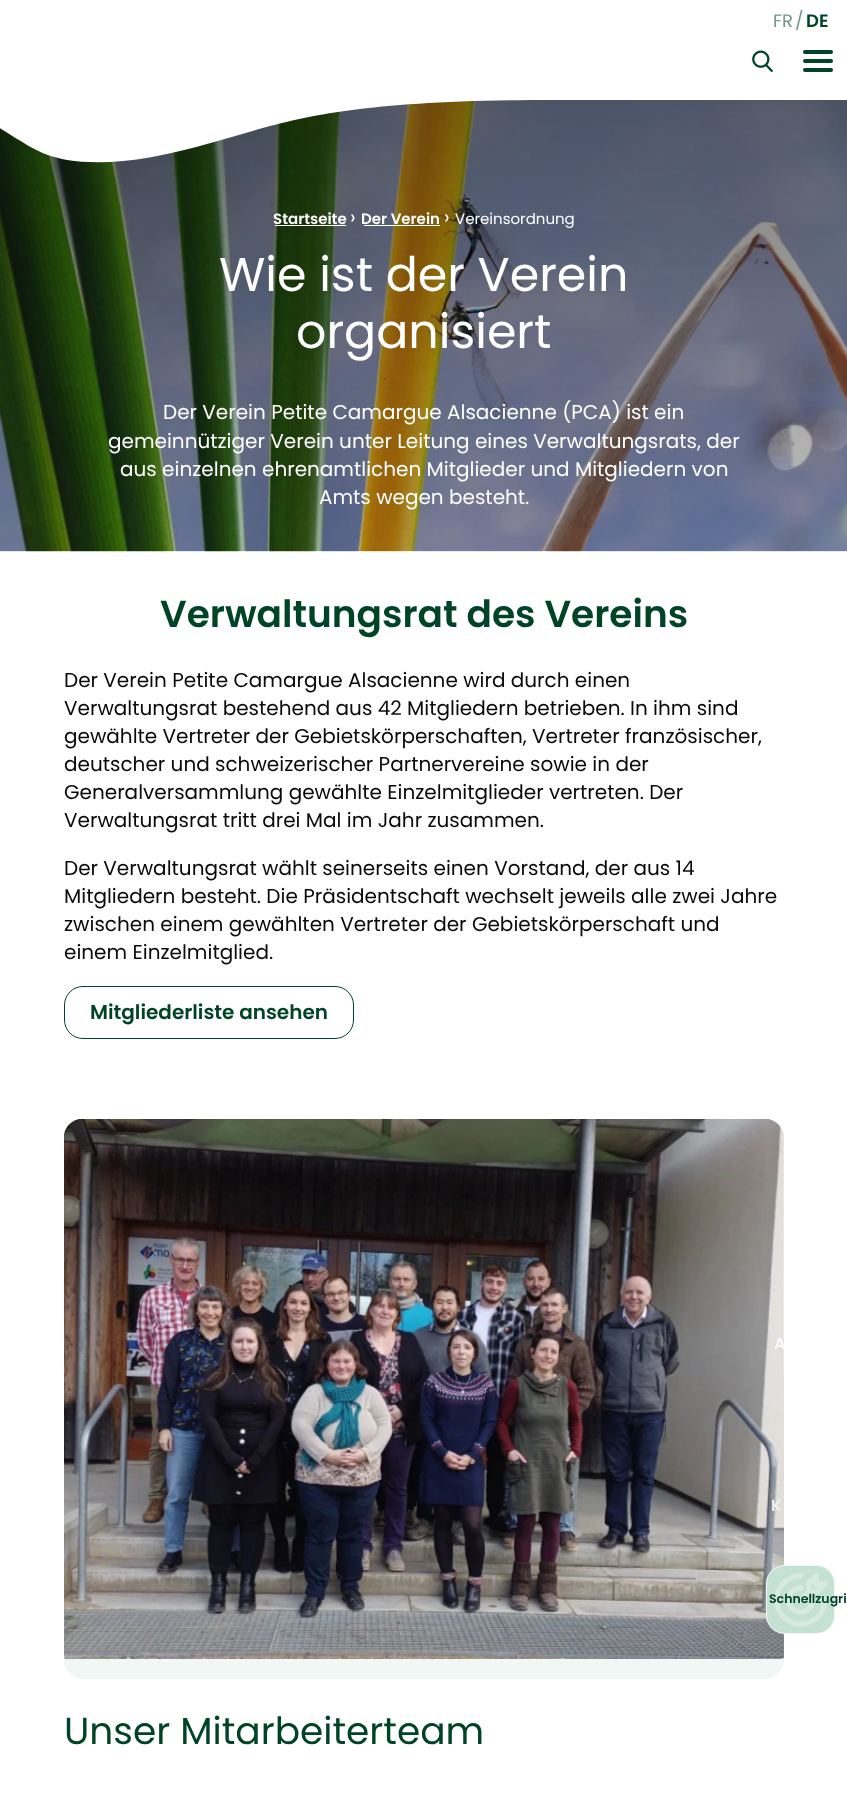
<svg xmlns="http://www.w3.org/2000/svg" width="847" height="1796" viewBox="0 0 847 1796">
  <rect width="100%" height="100%" fill="#ffffff"/>
  <image x="0" y="100" width="847" height="452" href="img2.png"/>
  <path d="M-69 0H556V100C345 100 294 119 214 142C153 160 106 166 67 160C35 154 29 145-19 117C-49 99-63 100-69 100Z" fill="#ffffff" fill-rule="evenodd"/>
  <image x="752" y="50" width="21" height="22" href="img1.png"/>
  <rect x="803" y="50" width="30" height="4" rx="2" fill="#004428"/>
  <rect x="803" y="59" width="30" height="4" rx="2" fill="#004428"/>
  <rect x="803" y="68" width="30" height="4" rx="2" fill="#004428"/>
  <text x="773" y="27" font-family="Poppins" font-size="18" fill="#739889">FR</text>
  <text x="795" y="27" font-family="Poppins" font-size="18" fill="#739889">/</text>
  <text x="806" y="27" font-family="Poppins" font-size="18" font-weight="600" fill="#004428">DE</text>
  <text x="273" y="224" font-family="Poppins" font-size="15" font-weight="600" fill="#ffffff">Startseite</text>
  <rect x="275" y="225" width="71" height="1" fill="#ffffff"/>
  <text x="350" y="224" font-family="Poppins" font-size="20" fill="#ffffff">›</text>
  <text x="361" y="224" font-family="Poppins" font-size="15" font-weight="600" fill="#ffffff">Der Verein</text>
  <rect x="364" y="225" width="76" height="1" fill="#ffffff"/>
  <text x="444" y="224" font-family="Poppins" font-size="20" fill="#ffffff">›</text>
  <text x="455" y="224" font-family="Poppins" font-size="15" fill="#ffffff">Vereinsordnung</text>
  <text x="219" y="291" font-family="Poppins" font-size="47.5" fill="#ffffff">Wie ist der Verein</text>
  <text x="296" y="348" font-family="Poppins" font-size="47.5" fill="#ffffff">organisiert</text>
  <text x="163" y="419" font-family="Poppins" font-size="20" fill="#ffffff">Der Verein Petite Camargue Alsacienne (PCA) ist ein</text>
  <text x="108" y="448" font-family="Poppins" font-size="20" fill="#ffffff">gemeinnütziger Verein unter Leitung eines Verwaltungsrats, der</text>
  <text x="120" y="476" font-family="Poppins" font-size="20" fill="#ffffff">aus einzelnen ehrenamtlichen Mitglieder und Mitgliedern von</text>
  <text x="319" y="504" font-family="Poppins" font-size="20" fill="#ffffff">Amts wegen besteht.</text>
  <text x="160" y="627" font-family="Poppins" font-size="37.5" font-weight="600" fill="#004428">Verwaltungsrat des Vereins</text>
  <text x="64" y="687" font-family="Poppins" font-size="20" fill="#0a0a0a">Der Verein Petite Camargue Alsacienne wird durch einen</text>
  <text x="64" y="715" font-family="Poppins" font-size="20" fill="#0a0a0a">Verwaltungsrat bestehend aus 42 Mitgliedern betrieben. In ihm sind</text>
  <text x="64" y="743" font-family="Poppins" font-size="20" fill="#0a0a0a">gewählte Vertreter der Gebietskörperschaften, Vertreter französischer,</text>
  <text x="64" y="771" font-family="Poppins" font-size="20" fill="#0a0a0a">deutscher und schweizerischer Partnervereine sowie in der</text>
  <text x="64" y="799" font-family="Poppins" font-size="20" fill="#0a0a0a">Generalversammlung gewählte Einzelmitglieder vertreten. Der</text>
  <text x="64" y="827" font-family="Poppins" font-size="20" fill="#0a0a0a">Verwaltungsrat tritt drei Mal im Jahr zusammen.</text>
  <text x="64" y="875" font-family="Poppins" font-size="20" fill="#0a0a0a">Der Verwaltungsrat wählt seinerseits einen Vorstand, der aus 14</text>
  <text x="64" y="903" font-family="Poppins" font-size="20" fill="#0a0a0a">Mitgliedern besteht. Die Präsidentschaft wechselt jeweils alle zwei Jahre</text>
  <text x="64" y="931" font-family="Poppins" font-size="20" fill="#0a0a0a">zwischen einem gewählten Vertreter der Gebietskörperschaft und</text>
  <text x="64" y="959" font-family="Poppins" font-size="20" fill="#0a0a0a">einem Einzelmitglied.</text>
  <rect x="64.5" y="986.5" width="289" height="52" rx="18.5" fill="none" stroke="#004428"/>
  <text x="90" y="1019" font-family="Poppins" font-size="20" font-weight="600" fill="#004428">Mitgliederliste ansehen</text>
  <image x="64" y="1119" width="720" height="540" href="img3.png"/>
  <path d="M64 1659H784V1660C784 1670.5 775.5 1679 765 1679H83C72.5 1679 64 1670.5 64 1660Z" fill="#f0f7f4"/>
  <text x="64" y="1744" font-family="Poppins" font-size="37.5" fill="#004428">Unser Mitarbeiterteam</text>
  <text x="774" y="1349" font-family="Poppins" font-size="16" font-weight="600" fill="#fafaf9">A</text>
  <text x="771" y="1511" font-family="Poppins" font-size="16" font-weight="600" fill="#f3f3f3">K</text>
  <rect x="766" y="1565" width="69" height="69" rx="19" fill="#c5e1d5"/>
  <rect x="766.5" y="1565.5" width="68" height="68" rx="18.5" fill="none" stroke="#ffffff" stroke-opacity="0.75"/>
  <image x="774" y="1573" width="54" height="54" href="img4.png"/>
  <text x="769" y="1603" font-family="Poppins" font-size="12.5" font-weight="600" fill="#004428">Schnellzugri</text>
</svg>
